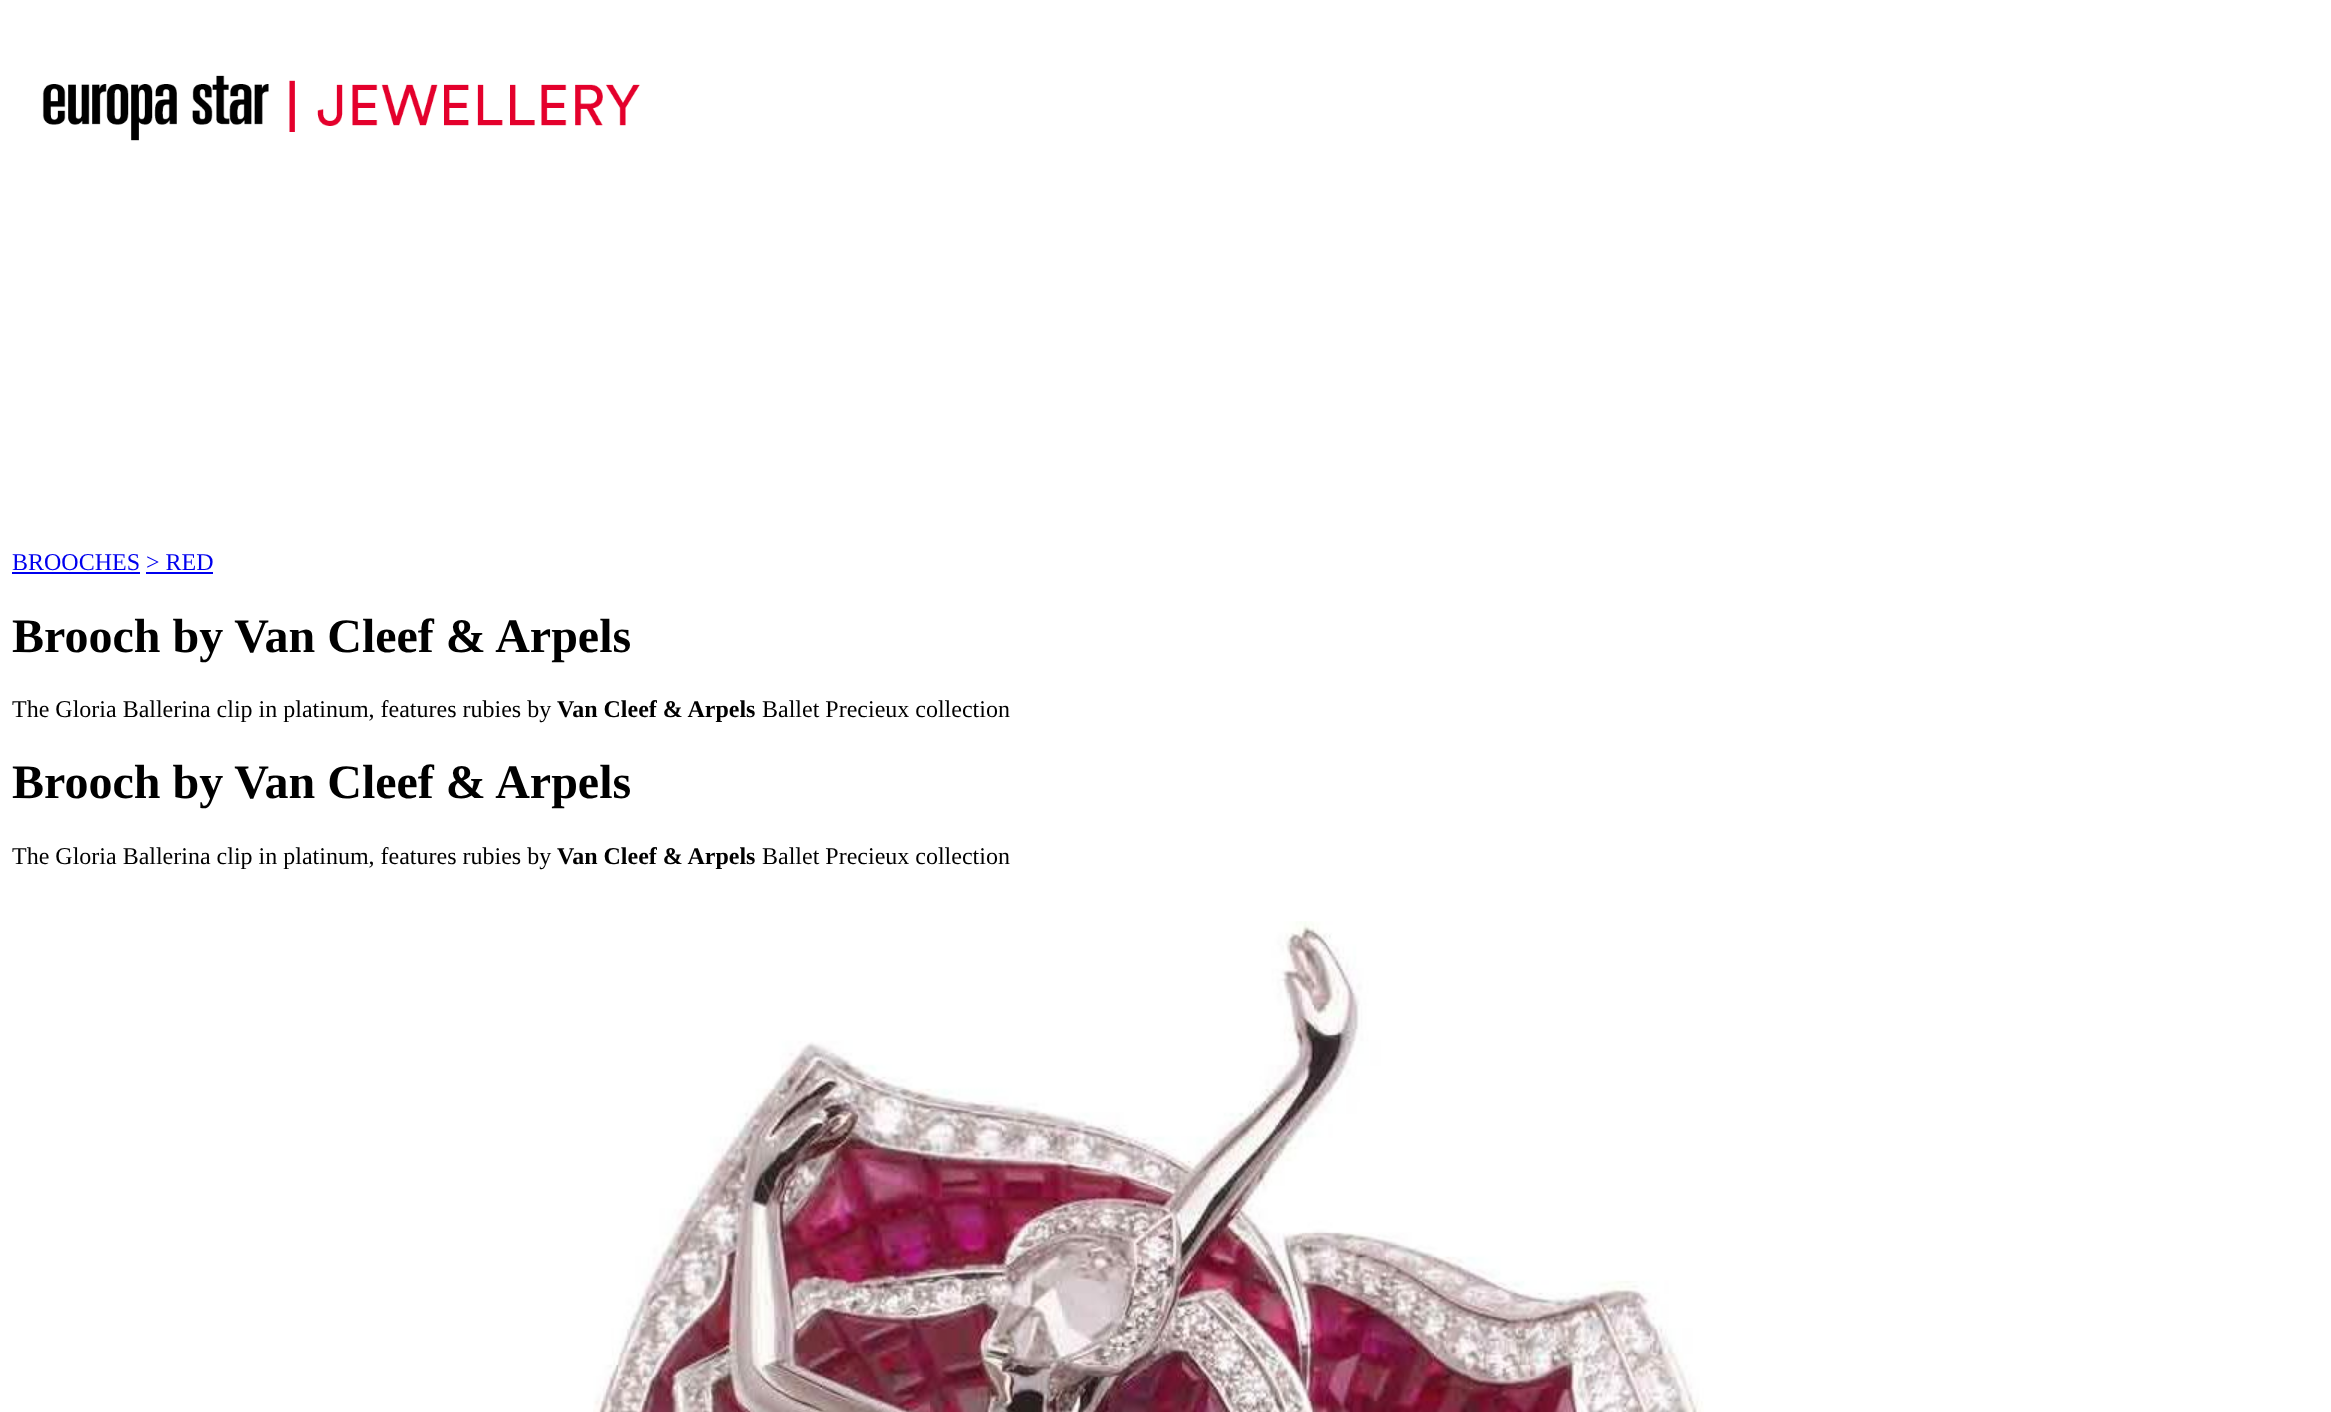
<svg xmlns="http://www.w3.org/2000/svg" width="2331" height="1412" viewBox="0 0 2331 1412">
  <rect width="100%" height="100%" fill="#ffffff"/>
  <image x="42" y="75" width="598" height="66" href="img1.png"/>
  <text x="12" y="570" font-family="Liberation Serif" font-size="24" fill="#0000ee">BROOCHES &gt; RED</text>
  <rect x="12" y="572" width="128" height="2" fill="#0000ee"/>
  <rect x="146" y="572" width="67" height="2" fill="#0000ee"/>
  <text x="12" y="652" font-family="Liberation Serif" font-size="48" font-weight="bold" fill="#000000">Brooch by Van Cleef &amp; Arpels</text>
  <text x="12" y="717" font-family="Liberation Serif" font-size="24" fill="#000000">The Gloria Ballerina clip in platinum, features rubies by</text>
  <text x="557" y="717" font-family="Liberation Serif" font-size="24" font-weight="bold" fill="#000000">Van Cleef &amp; Arpels</text>
  <text x="762" y="717" font-family="Liberation Serif" font-size="24" fill="#000000">Ballet Precieux collection</text>
  <text x="12" y="798" font-family="Liberation Serif" font-size="48" font-weight="bold" fill="#000000">Brooch by Van Cleef &amp; Arpels</text>
  <text x="12" y="864" font-family="Liberation Serif" font-size="24" fill="#000000">The Gloria Ballerina clip in platinum, features rubies by</text>
  <text x="557" y="864" font-family="Liberation Serif" font-size="24" font-weight="bold" fill="#000000">Van Cleef &amp; Arpels</text>
  <text x="762" y="864" font-family="Liberation Serif" font-size="24" fill="#000000">Ballet Precieux collection</text>
  <image x="593" y="921" width="1111" height="491" href="img2.png"/>
</svg>
